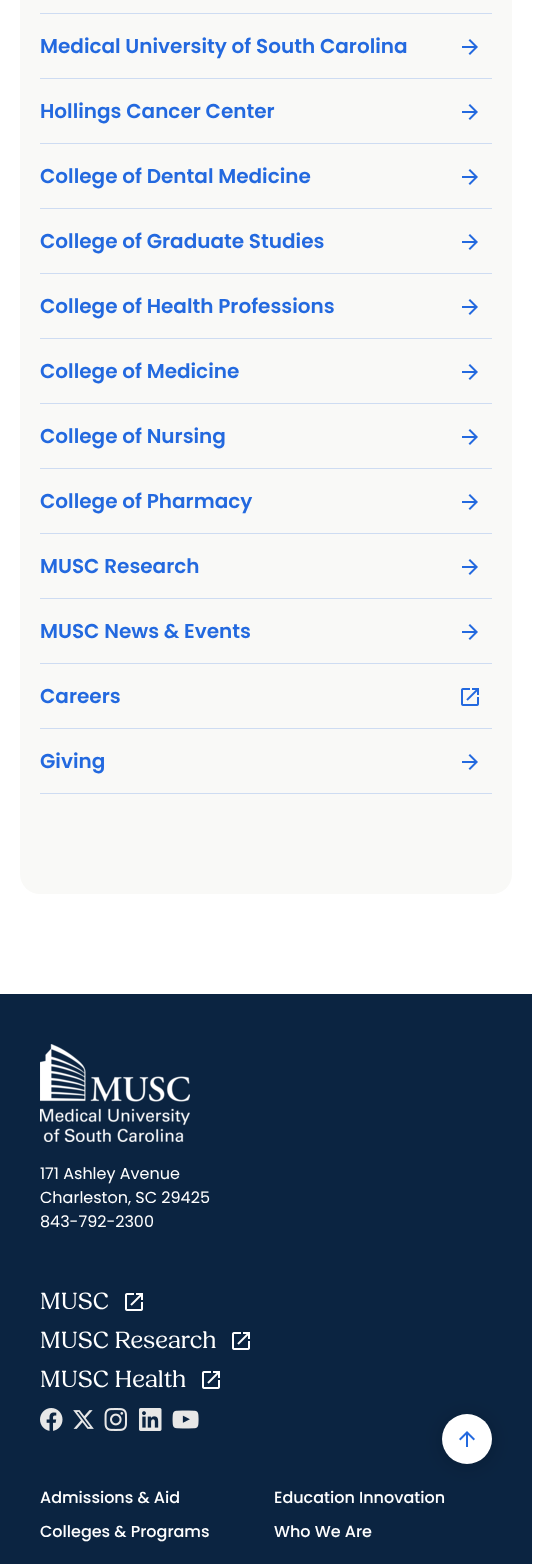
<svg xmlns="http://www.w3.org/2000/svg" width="547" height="1564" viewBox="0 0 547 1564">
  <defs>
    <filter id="blur1" x="-50%" y="-200%" width="200%" height="500%"><feGaussianBlur stdDeviation="10"/></filter>
  </defs>
  <rect width="100%" height="100%" fill="#ffffff"/>
  <rect x="20" y="-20" width="492" height="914" rx="20" fill="#f9f9f7"/>
  <rect x="40" y="13" width="452" height="1" fill="#cedcf2"/>
  <text x="40" y="53" font-family="Poppins" font-size="20" font-weight="600" fill="#2369df">Medical University of South Carolina</text>
  <image x="462" y="39" width="16" height="16" href="img1.png"/>
  <rect x="40" y="78" width="452" height="1" fill="#cedcf2"/>
  <text x="40" y="118" font-family="Poppins" font-size="20" font-weight="600" fill="#2369df">Hollings Cancer Center</text>
  <image x="462" y="104" width="16" height="16" href="img1.png"/>
  <rect x="40" y="143" width="452" height="1" fill="#cedcf2"/>
  <text x="40" y="183" font-family="Poppins" font-size="20" font-weight="600" fill="#2369df">College of Dental Medicine</text>
  <image x="462" y="169" width="16" height="16" href="img1.png"/>
  <rect x="40" y="208" width="452" height="1" fill="#cedcf2"/>
  <text x="40" y="248" font-family="Poppins" font-size="20" font-weight="600" fill="#2369df">College of Graduate Studies</text>
  <image x="462" y="234" width="16" height="16" href="img1.png"/>
  <rect x="40" y="273" width="452" height="1" fill="#cedcf2"/>
  <text x="40" y="313" font-family="Poppins" font-size="20" font-weight="600" fill="#2369df">College of Health Professions</text>
  <image x="462" y="299" width="16" height="16" href="img1.png"/>
  <rect x="40" y="338" width="452" height="1" fill="#cedcf2"/>
  <text x="40" y="378" font-family="Poppins" font-size="20" font-weight="600" fill="#2369df">College of Medicine</text>
  <image x="462" y="364" width="16" height="16" href="img1.png"/>
  <rect x="40" y="403" width="452" height="1" fill="#cedcf2"/>
  <text x="40" y="443" font-family="Poppins" font-size="20" font-weight="600" fill="#2369df">College of Nursing</text>
  <image x="462" y="429" width="16" height="16" href="img1.png"/>
  <rect x="40" y="468" width="452" height="1" fill="#cedcf2"/>
  <text x="40" y="508" font-family="Poppins" font-size="20" font-weight="600" fill="#2369df">College of Pharmacy</text>
  <image x="462" y="494" width="16" height="16" href="img1.png"/>
  <rect x="40" y="533" width="452" height="1" fill="#cedcf2"/>
  <text x="40" y="573" font-family="Poppins" font-size="20" font-weight="600" fill="#2369df">MUSC Research</text>
  <image x="462" y="559" width="16" height="16" href="img1.png"/>
  <rect x="40" y="598" width="452" height="1" fill="#cedcf2"/>
  <text x="40" y="638" font-family="Poppins" font-size="20" font-weight="600" fill="#2369df">MUSC News &amp; Events</text>
  <image x="462" y="624" width="16" height="16" href="img1.png"/>
  <rect x="40" y="663" width="452" height="1" fill="#cedcf2"/>
  <text x="40" y="703" font-family="Poppins" font-size="20" font-weight="600" fill="#2369df">Careers</text>
  <image x="461" y="688" width="18" height="18" href="img2.png"/>
  <rect x="40" y="728" width="452" height="1" fill="#cedcf2"/>
  <text x="40" y="768" font-family="Poppins" font-size="20" font-weight="600" fill="#2369df">Giving</text>
  <image x="462" y="754" width="16" height="16" href="img1.png"/>
  <rect x="40" y="793" width="452" height="1" fill="#cedcf2"/>
  <rect x="0" y="994" width="532" height="570" fill="#0b2441"/>
  <image x="40" y="1044" width="150" height="98" href="img3.png"/>
  <text x="40" y="1179" font-family="Poppins" font-size="16" fill="#ffffff">171 Ashley Avenue</text>
  <text x="40" y="1203" font-family="Poppins" font-size="16" fill="#ffffff">Charleston, SC 29425</text>
  <text x="40" y="1227" font-family="Poppins" font-size="16" fill="#ffffff">843-792-2300</text>
  <text x="40" y="1309" font-family="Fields" font-size="24" fill="#ffffff">MUSC</text>
  <image x="125" y="1293" width="18" height="18" href="img4.png"/>
  <text x="40" y="1348" font-family="Fields" font-size="24" fill="#ffffff">MUSC Research</text>
  <image x="232" y="1332" width="18" height="18" href="img4.png"/>
  <text x="40" y="1387" font-family="Fields" font-size="24" fill="#ffffff">MUSC Health</text>
  <image x="202" y="1371" width="18" height="18" href="img4.png"/>
  <image x="40" y="1408" width="23" height="23" href="img5.png"/>
  <image x="73" y="1410" width="21" height="19" href="img6.png"/>
  <image x="104" y="1408" width="24" height="23" href="img7.png"/>
  <image x="138" y="1408" width="24" height="23" href="img8.png"/>
  <image x="172" y="1410" width="27" height="19" href="img9.png"/>
  <text x="40" y="1503" font-family="Poppins" font-size="16" font-weight="500" fill="#ffffff">Admissions &amp; Aid</text>
  <text x="274" y="1503" font-family="Poppins" font-size="16" font-weight="500" fill="#ffffff">Education Innovation</text>
  <text x="40" y="1537" font-family="Poppins" font-size="16" font-weight="500" fill="#ffffff">Colleges &amp; Programs</text>
  <text x="274" y="1537" font-family="Poppins" font-size="16" font-weight="500" fill="#ffffff">Who We Are</text>
  <rect x="442" y="1416" width="50" height="50" rx="25" fill="#000000" fill-opacity="0.2" filter="url(#blur1)"/>
  <circle cx="467" cy="1439" r="25" fill="#ffffff"/>
  <image x="459" y="1431" width="16" height="16" href="img10.png"/>
</svg>
